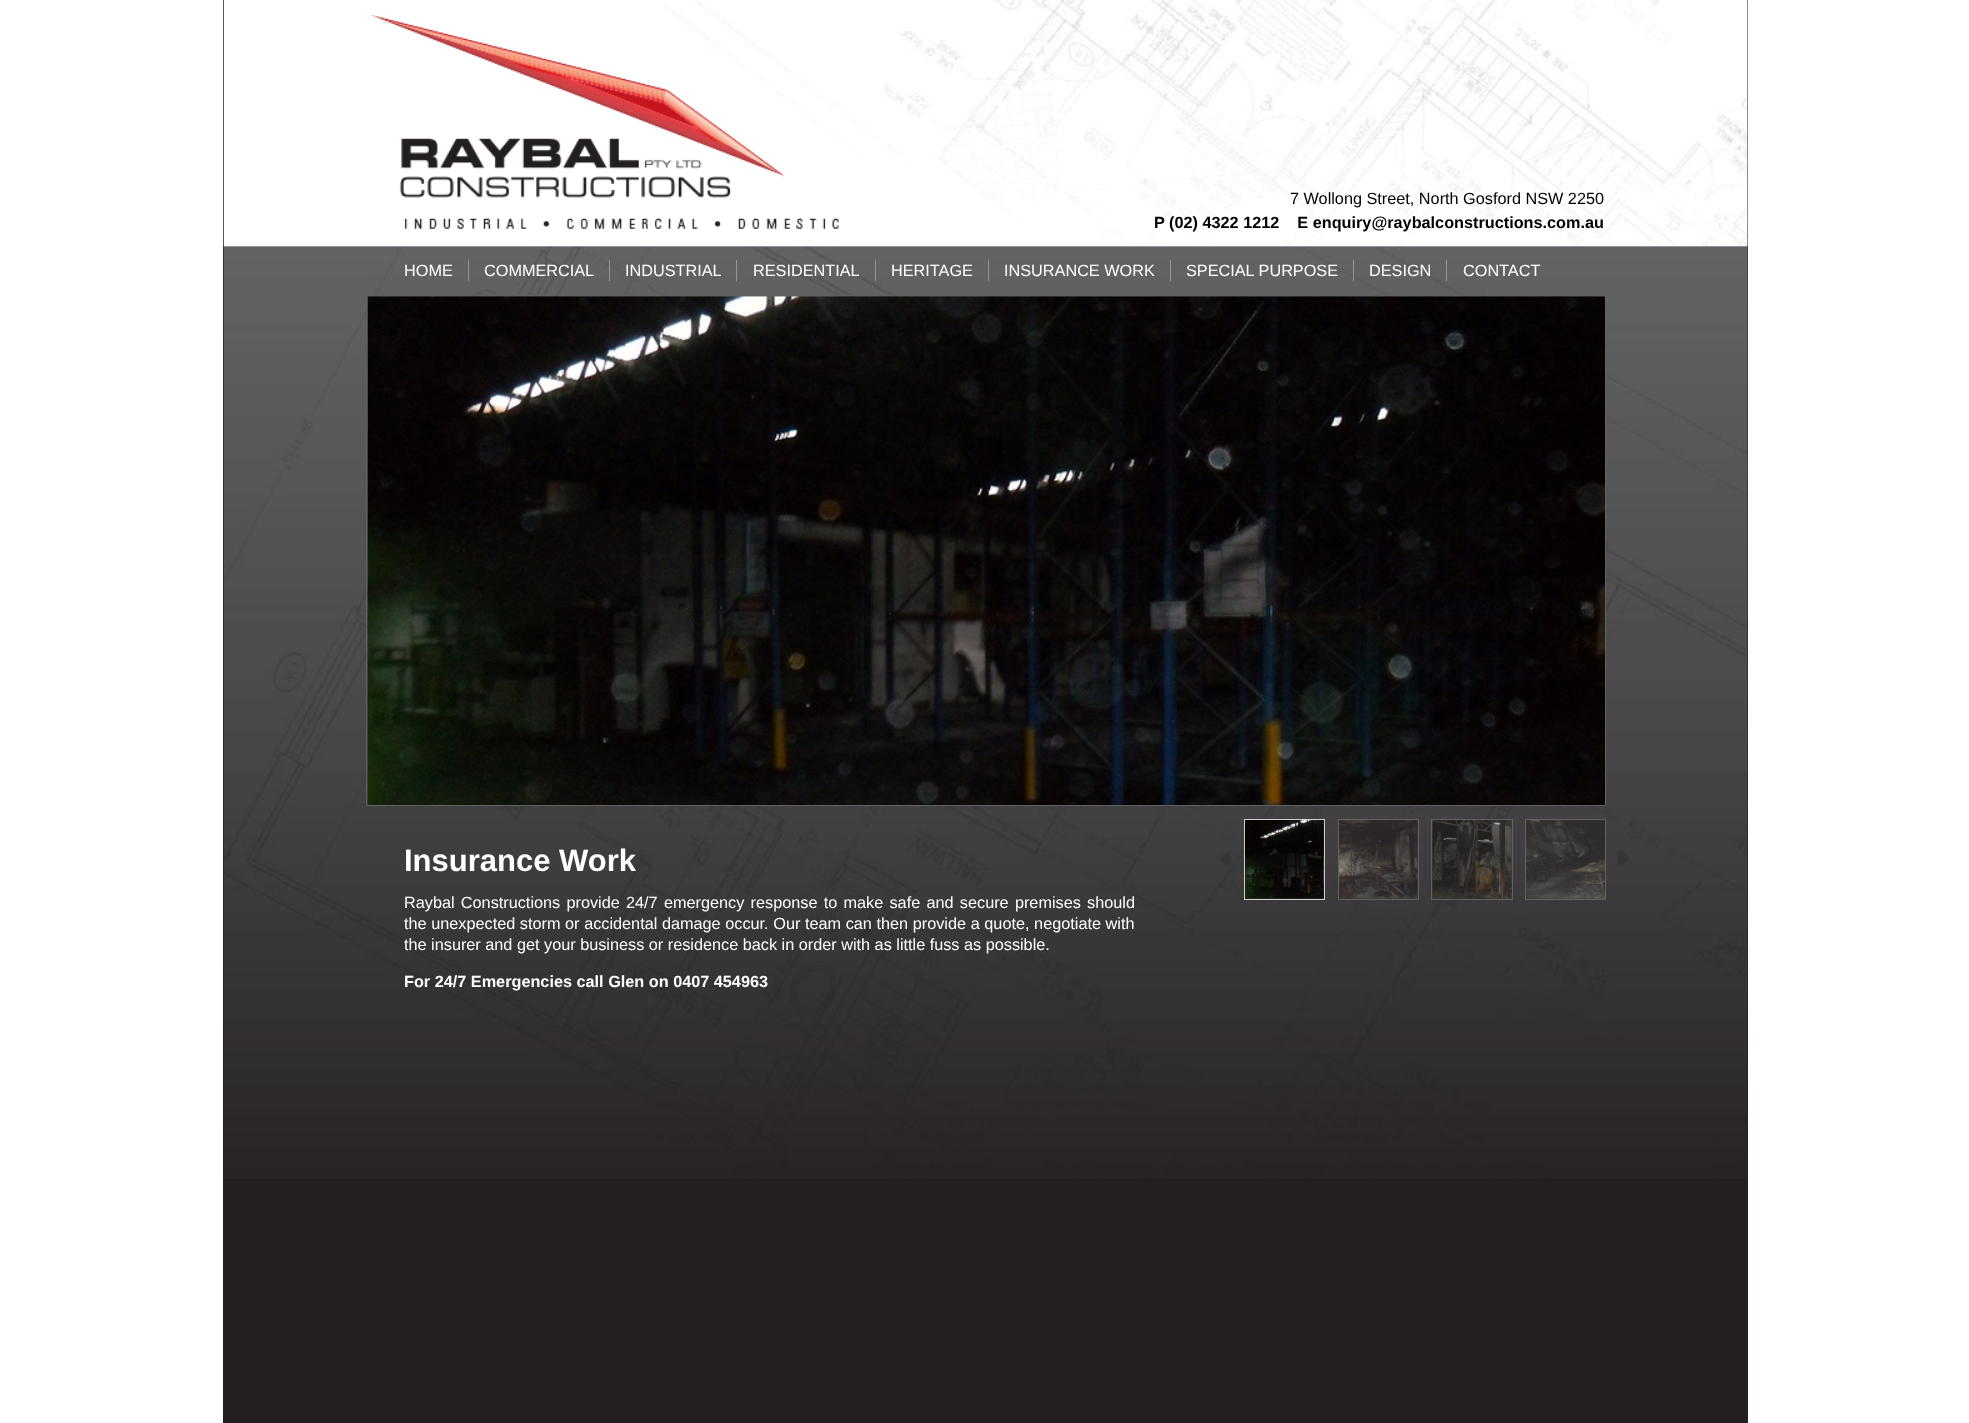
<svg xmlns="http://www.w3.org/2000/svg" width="1969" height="1423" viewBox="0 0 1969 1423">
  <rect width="100%" height="100%" fill="#ffffff"/>
  <rect x="223" y="0" width="1525" height="1423" fill="#231f20"/>
  <image x="223" y="0" width="1525" height="1179" href="img1.png"/>
  <image x="370" y="15" width="469" height="214" href="img2.png"/>
  <text x="1290" y="204" font-family="Liberation Sans" font-size="16.25" fill="#000000">7 Wollong Street, North Gosford NSW 2250</text>
  <text x="1154" y="228" font-family="Liberation Sans" font-size="16.25" font-weight="bold" fill="#000000" xml:space="preserve">P (02) 4322 1212    E enquiry@raybalconstructions.com.au</text>
  <text x="404" y="276" font-family="Liberation Sans" font-size="16.25" fill="#ffffff">HOME</text>
  <rect x="468" y="260" width="1" height="21" fill="#939598"/>
  <text x="484" y="276" font-family="Liberation Sans" font-size="16.25" fill="#ffffff">COMMERCIAL</text>
  <rect x="609" y="260" width="1" height="21" fill="#939598"/>
  <text x="625" y="276" font-family="Liberation Sans" font-size="16.25" fill="#ffffff">INDUSTRIAL</text>
  <rect x="736" y="260" width="1" height="21" fill="#939598"/>
  <text x="753" y="276" font-family="Liberation Sans" font-size="16.25" fill="#ffffff">RESIDENTIAL</text>
  <rect x="875" y="260" width="1" height="21" fill="#939598"/>
  <text x="891" y="276" font-family="Liberation Sans" font-size="16.25" fill="#ffffff">HERITAGE</text>
  <rect x="988" y="260" width="1" height="21" fill="#939598"/>
  <text x="1004" y="276" font-family="Liberation Sans" font-size="16.25" fill="#ffffff">INSURANCE WORK</text>
  <rect x="1170" y="260" width="1" height="21" fill="#939598"/>
  <text x="1186" y="276" font-family="Liberation Sans" font-size="16.25" fill="#ffffff">SPECIAL PURPOSE</text>
  <rect x="1353" y="260" width="1" height="21" fill="#939598"/>
  <text x="1369" y="276" font-family="Liberation Sans" font-size="16.25" fill="#ffffff">DESIGN</text>
  <rect x="1446" y="260" width="1" height="21" fill="#939598"/>
  <text x="1463" y="276" font-family="Liberation Sans" font-size="16.25" fill="#ffffff">CONTACT</text>
  <rect x="366.5" y="295.5" width="1239" height="510" fill="none" stroke="#616161"/>
  <image x="367" y="296" width="1238" height="509" href="img3.png"/>
  <image x="1220" y="850" width="11" height="17" href="img4.png"/>
  <rect x="1244.5" y="819.5" width="80" height="80" fill="none" stroke="#cccccc"/>
  <image x="1245" y="820" width="79" height="79" href="img5.png"/>
  <rect x="1338.5" y="819.5" width="80" height="80" fill="none" stroke="#616161"/>
  <image x="1339" y="820" width="79" height="79" href="img6.png"/>
  <rect x="1431.5" y="819.5" width="81" height="80" fill="none" stroke="#616161"/>
  <image x="1432" y="820" width="80" height="79" href="img7.png"/>
  <rect x="1525.5" y="819.5" width="80" height="80" fill="none" stroke="#616161"/>
  <image x="1526" y="820" width="79" height="79" href="img8.png"/>
  <image x="1617" y="850" width="12" height="17" href="img9.png"/>
  <text x="404" y="871" font-family="Liberation Sans" font-size="31" font-weight="bold" fill="#ffffff">Insurance Work</text>
  <text x="404" y="908" word-spacing="1.75" font-family="Liberation Sans" font-size="16.25" fill="#ffffff">Raybal Constructions provide 24/7 emergency response to make safe and secure premises should</text>
  <text x="404" y="929" word-spacing="0.1" font-family="Liberation Sans" font-size="16.25" fill="#ffffff">the unexpected storm or accidental damage occur. Our team can then provide a quote, negotiate with</text>
  <text x="404" y="950" font-family="Liberation Sans" font-size="16.25" fill="#ffffff">the insurer and get your business or residence back in order with as little fuss as possible.</text>
  <text x="404" y="987" font-family="Liberation Sans" font-size="16.25" font-weight="bold" fill="#ffffff">For 24/7 Emergencies call Glen on 0407 454963</text>
</svg>
